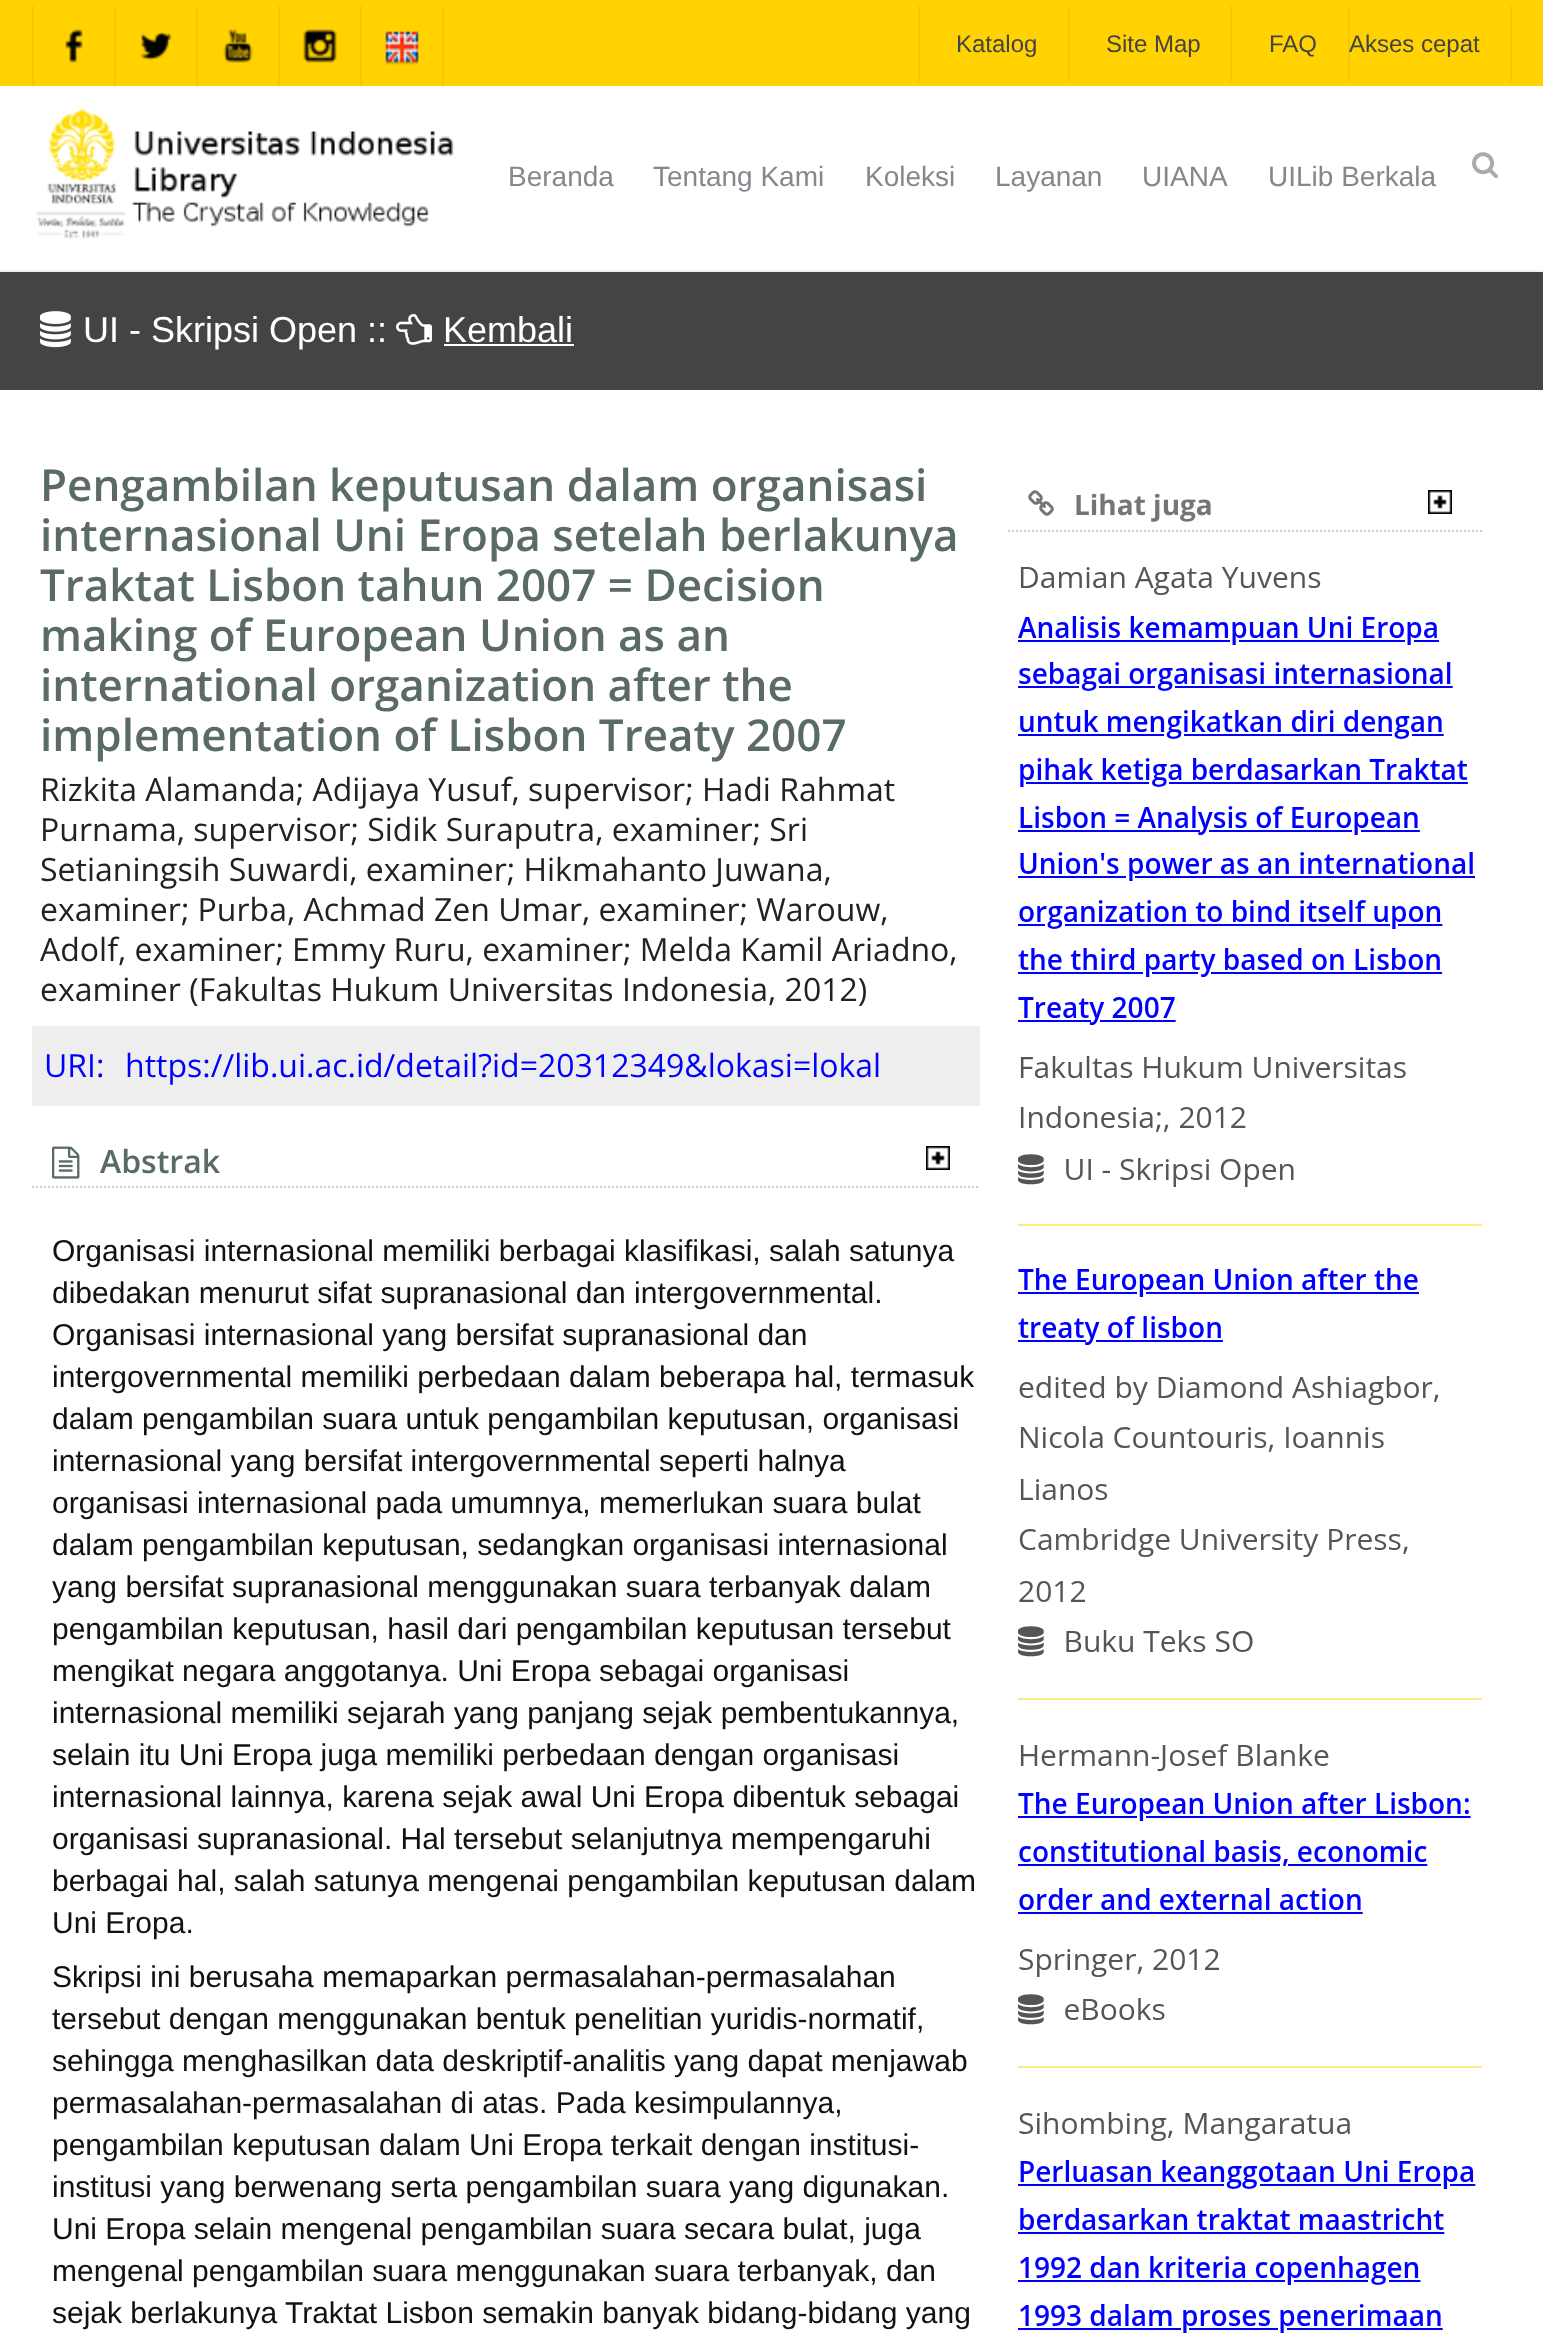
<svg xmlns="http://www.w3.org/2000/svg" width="1543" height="2335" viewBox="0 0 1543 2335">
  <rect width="100%" height="100%" fill="#ffffff"/>
  <rect x="0" y="0" width="1543" height="86" fill="#ffd200"/>
  <rect x="32" y="6" width="2" height="80" fill="#f2c800"/>
  <rect x="114" y="6" width="2" height="80" fill="#f2c800"/>
  <image x="65" y="29" width="18" height="34" href="img1.png"/>
  <rect x="196" y="6" width="2" height="80" fill="#f2c800"/>
  <image x="140" y="31" width="33" height="30" href="img2.png"/>
  <rect x="278" y="6" width="2" height="80" fill="#f2c800"/>
  <image x="223" y="29" width="30" height="34" href="img3.png"/>
  <rect x="360" y="6" width="2" height="80" fill="#f2c800"/>
  <image x="303" y="29" width="34" height="34" href="img4.png"/>
  <rect x="442" y="6" width="2" height="80" fill="#f2c800"/>
  <image x="385" y="31" width="34" height="34" href="img5.png"/>
  <rect x="918" y="6" width="2" height="76" fill="#f2c800"/>
  <text x="956" y="52" font-family="Liberation Sans" font-size="24" fill="#444444">Katalog</text>
  <rect x="1068" y="6" width="2" height="76" fill="#f2c800"/>
  <text x="1106" y="52" font-family="Liberation Sans" font-size="24" fill="#444444">Site Map</text>
  <rect x="1230" y="6" width="2" height="76" fill="#f2c800"/>
  <text x="1269" y="52" font-family="Liberation Sans" font-size="24" fill="#444444">FAQ</text>
  <rect x="1510" y="6" width="2" height="76" fill="#f2c800"/>
  <rect x="1348" y="6" width="2" height="76" fill="#f2c800"/>
  <text x="1349" y="52" font-family="Liberation Sans" font-size="24" fill="#444444">Akses cepat</text>
  <rect x="0" y="270" width="1543" height="2" fill="#f2f2f2"/>
  <image x="36" y="108" width="418" height="131" href="img6.png"/>
  <text x="508" y="186" font-family="Liberation Sans" font-size="28" fill="#84888d">Beranda</text>
  <text x="653" y="186" font-family="Liberation Sans" font-size="28" fill="#84888d">Tentang Kami</text>
  <text x="865" y="186" font-family="Liberation Sans" font-size="28" fill="#84888d">Koleksi</text>
  <text x="995" y="186" font-family="Liberation Sans" font-size="28" fill="#84888d">Layanan</text>
  <text x="1142" y="186" font-family="Liberation Sans" font-size="28" fill="#84888d">UIANA</text>
  <text x="1268" y="186" font-family="Liberation Sans" font-size="28" fill="#84888d">UILib Berkala</text>
  <image x="1472" y="152" width="26" height="27" href="img7.png"/>
  <rect x="0" y="272" width="1543" height="118" fill="#444444"/>
  <image x="40" y="311" width="31" height="37" href="img8.png"/>
  <text x="83" y="342" font-family="Liberation Sans" font-size="36" fill="#ffffff">UI - Skripsi Open ::</text>
  <image x="396" y="314" width="36" height="31" href="img9.png"/>
  <text x="443" y="342" font-family="Liberation Sans" font-size="36" fill="#ffffff">Kembali</text>
  <rect x="444" y="344" width="130" height="2" fill="#ffffff"/>
  <text x="40" y="501" font-family="Open Sans" font-size="44" font-weight="600" fill="#596a67">Pengambilan keputusan dalam organisasi</text>
  <text x="40" y="551" font-family="Open Sans" font-size="44" font-weight="600" fill="#596a67">internasional Uni Eropa setelah berlakunya</text>
  <text x="40" y="601" font-family="Open Sans" font-size="44" font-weight="600" fill="#596a67">Traktat Lisbon tahun 2007 = Decision</text>
  <text x="40" y="651" font-family="Open Sans" font-size="44" font-weight="600" fill="#596a67">making of European Union as an</text>
  <text x="40" y="701" font-family="Open Sans" font-size="44" font-weight="600" fill="#596a67">international organization after the</text>
  <text x="40" y="751" font-family="Open Sans" font-size="44" font-weight="600" fill="#596a67">implementation of Lisbon Treaty 2007</text>
  <text x="40" y="801" font-family="Open Sans" font-size="32" fill="#222222">Rizkita Alamanda; Adijaya Yusuf, supervisor; Hadi Rahmat</text>
  <text x="40" y="841" font-family="Open Sans" font-size="32" fill="#222222">Purnama, supervisor; Sidik Suraputra, examiner; Sri</text>
  <text x="40" y="881" font-family="Open Sans" font-size="32" fill="#222222">Setianingsih Suwardi, examiner; Hikmahanto Juwana,</text>
  <text x="40" y="921" font-family="Open Sans" font-size="32" fill="#222222">examiner; Purba, Achmad Zen Umar, examiner; Warouw,</text>
  <text x="40" y="961" font-family="Open Sans" font-size="32" fill="#222222">Adolf, examiner; Emmy Ruru, examiner; Melda Kamil Ariadno,</text>
  <text x="40" y="1001" font-family="Open Sans" font-size="32" fill="#222222">examiner (Fakultas Hukum Universitas Indonesia, 2012)</text>
  <rect x="32" y="1026" width="948" height="80" fill="#eeeeee"/>
  <text x="44" y="1077" font-family="Open Sans" font-size="32" fill="#0000ff">URI:</text>
  <text x="125" y="1077" font-family="Open Sans" font-size="32" fill="#0000ff">https://lib.ui.ac.id/detail?id=20312349&amp;lokasi=lokal</text>
  <path d="M32 1187H980" fill="none" stroke="#cccccc" stroke-width="2" stroke-dasharray="2 2"/>
  <image x="52" y="1146" width="28" height="33" href="img10.png"/>
  <text x="100" y="1173" font-family="Open Sans" font-size="32" font-weight="600" fill="#596a67">Abstrak</text>
  <image x="926" y="1146" width="24" height="24" href="img11.png"/>
  <text x="52" y="1261" font-family="Liberation Sans" font-size="30" fill="#111111">Organisasi internasional memiliki berbagai klasifikasi, salah satunya</text>
  <text x="52" y="1303" font-family="Liberation Sans" font-size="30" fill="#111111">dibedakan menurut sifat supranasional dan intergovernmental.</text>
  <text x="52" y="1345" font-family="Liberation Sans" font-size="30" fill="#111111">Organisasi internasional yang bersifat supranasional dan</text>
  <text x="52" y="1387" font-family="Liberation Sans" font-size="30" fill="#111111">intergovernmental memiliki perbedaan dalam beberapa hal, termasuk</text>
  <text x="52" y="1429" font-family="Liberation Sans" font-size="30" fill="#111111">dalam pengambilan suara untuk pengambilan keputusan, organisasi</text>
  <text x="52" y="1471" font-family="Liberation Sans" font-size="30" fill="#111111">internasional yang bersifat intergovernmental seperti halnya</text>
  <text x="52" y="1513" font-family="Liberation Sans" font-size="30" fill="#111111">organisasi internasional pada umumnya, memerlukan suara bulat</text>
  <text x="52" y="1555" font-family="Liberation Sans" font-size="30" fill="#111111">dalam pengambilan keputusan, sedangkan organisasi internasional</text>
  <text x="52" y="1597" font-family="Liberation Sans" font-size="30" fill="#111111">yang bersifat supranasional menggunakan suara terbanyak dalam</text>
  <text x="52" y="1639" font-family="Liberation Sans" font-size="30" fill="#111111">pengambilan keputusan, hasil dari pengambilan keputusan tersebut</text>
  <text x="52" y="1681" font-family="Liberation Sans" font-size="30" fill="#111111">mengikat negara anggotanya. Uni Eropa sebagai organisasi</text>
  <text x="52" y="1723" font-family="Liberation Sans" font-size="30" fill="#111111">internasional memiliki sejarah yang panjang sejak pembentukannya,</text>
  <text x="52" y="1765" font-family="Liberation Sans" font-size="30" fill="#111111">selain itu Uni Eropa juga memiliki perbedaan dengan organisasi</text>
  <text x="52" y="1807" font-family="Liberation Sans" font-size="30" fill="#111111">internasional lainnya, karena sejak awal Uni Eropa dibentuk sebagai</text>
  <text x="52" y="1849" font-family="Liberation Sans" font-size="30" fill="#111111">organisasi supranasional. Hal tersebut selanjutnya mempengaruhi</text>
  <text x="52" y="1891" font-family="Liberation Sans" font-size="30" fill="#111111">berbagai hal, salah satunya mengenai pengambilan keputusan dalam</text>
  <text x="52" y="1933" font-family="Liberation Sans" font-size="30" fill="#111111">Uni Eropa.</text>
  <text x="52" y="1987" font-family="Liberation Sans" font-size="30" fill="#111111">Skripsi ini berusaha memaparkan permasalahan-permasalahan</text>
  <text x="52" y="2029" font-family="Liberation Sans" font-size="30" fill="#111111">tersebut dengan menggunakan bentuk penelitian yuridis-normatif,</text>
  <text x="52" y="2071" font-family="Liberation Sans" font-size="30" fill="#111111">sehingga menghasilkan data deskriptif-analitis yang dapat menjawab</text>
  <text x="52" y="2113" font-family="Liberation Sans" font-size="30" fill="#111111">permasalahan-permasalahan di atas. Pada kesimpulannya,</text>
  <text x="52" y="2155" font-family="Liberation Sans" font-size="30" fill="#111111">pengambilan keputusan dalam Uni Eropa terkait dengan institusi-</text>
  <text x="52" y="2197" font-family="Liberation Sans" font-size="30" fill="#111111">institusi yang berwenang serta pengambilan suara yang digunakan.</text>
  <text x="52" y="2239" font-family="Liberation Sans" font-size="30" fill="#111111">Uni Eropa selain mengenal pengambilan suara secara bulat, juga</text>
  <text x="52" y="2281" font-family="Liberation Sans" font-size="30" fill="#111111">mengenal pengambilan suara menggunakan suara terbanyak, dan</text>
  <text x="52" y="2323" font-family="Liberation Sans" font-size="30" fill="#111111">sejak berlakunya Traktat Lisbon semakin banyak bidang-bidang yang</text>
  <path d="M1008 531H1482" fill="none" stroke="#cccccc" stroke-width="2" stroke-dasharray="2 2"/>
  <image x="1028" y="490" width="26" height="26" href="img12.png"/>
  <text x="1074" y="515" font-family="Open Sans" font-size="28" font-weight="bold" fill="#757575">Lihat juga</text>
  <image x="1428" y="490" width="24" height="24" href="img11.png"/>
  <image x="1018" y="567" width="464" height="1766" href="img13.png"/>
</svg>
